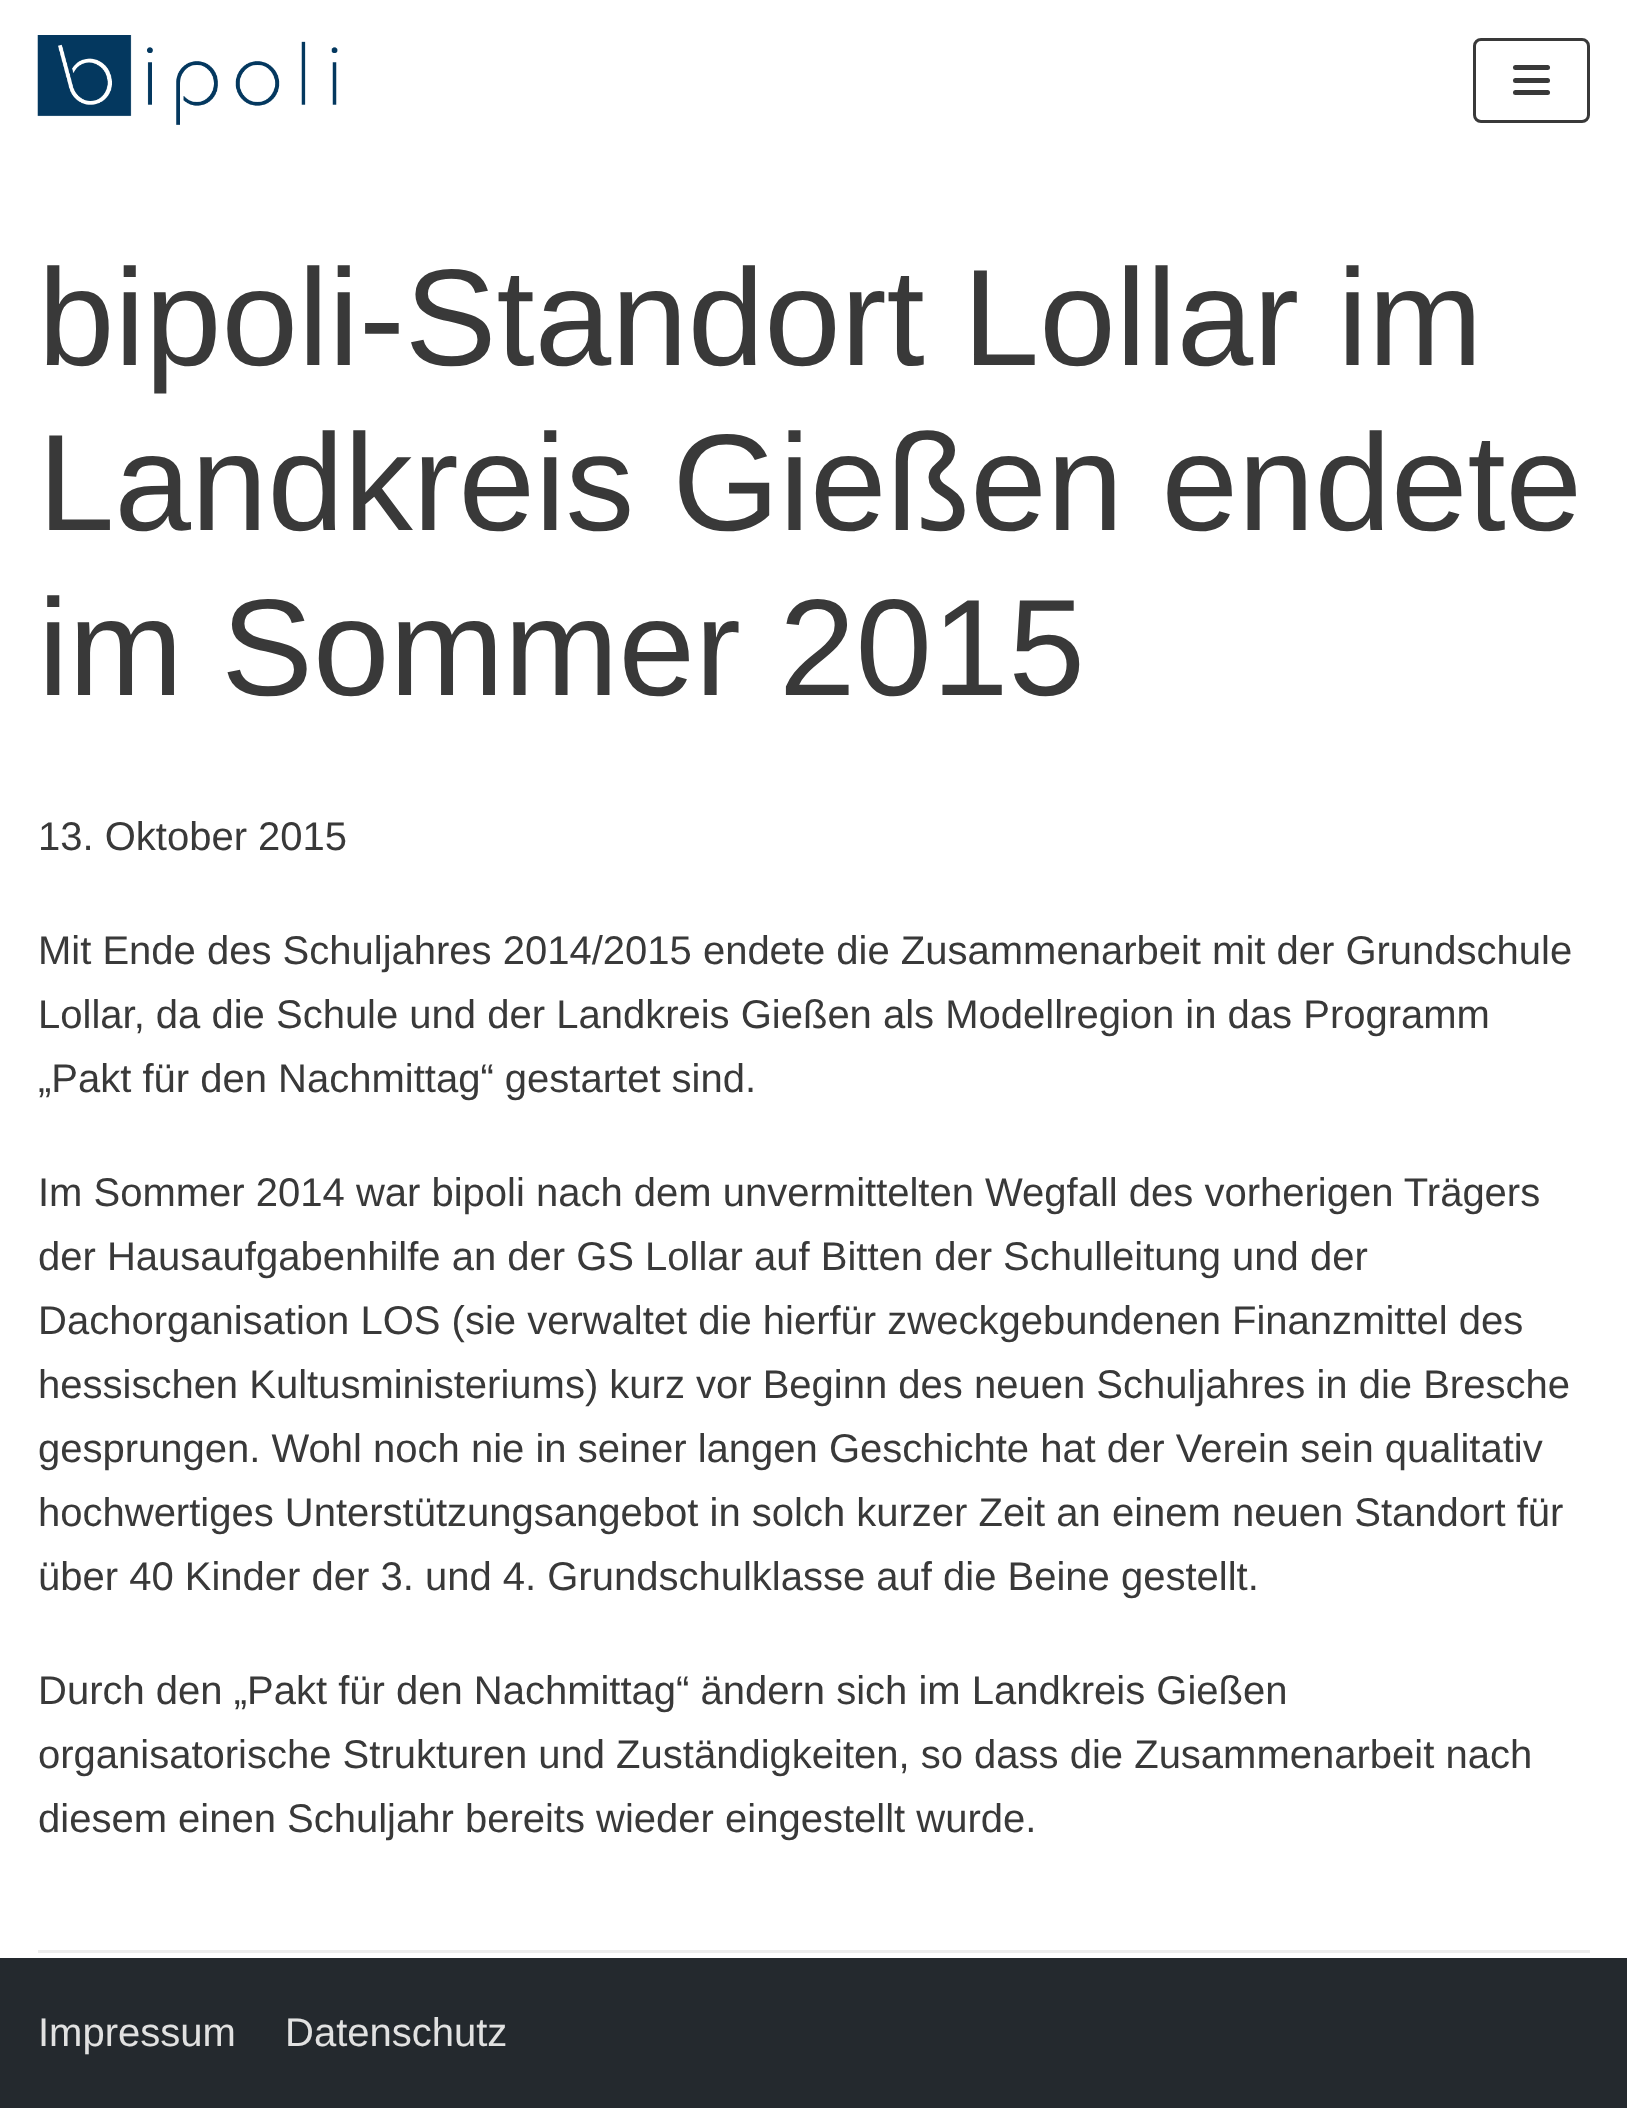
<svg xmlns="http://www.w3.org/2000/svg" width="1627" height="2108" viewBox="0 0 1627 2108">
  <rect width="100%" height="100%" fill="#ffffff"/>
  <image x="37" y="35" width="301" height="90" href="img1.png"/>
  <rect x="1474.5" y="39.5" width="114" height="82" rx="6.5" fill="none" stroke="#393939" stroke-width="3"/>
  <rect x="1513" y="65" width="37" height="5" rx="2.5" fill="#393939"/>
  <rect x="1513" y="78" width="37" height="5" rx="2.5" fill="#393939"/>
  <rect x="1513" y="90" width="37" height="5" rx="2.5" fill="#393939"/>
  <text x="38" y="365" font-family="Liberation Sans" font-size="137.5" fill="#393939">bipoli-Standort Lollar im</text>
  <text x="38" y="530" font-family="Liberation Sans" font-size="137.5" fill="#393939">Landkreis Gießen endete</text>
  <text x="38" y="695" font-family="Liberation Sans" font-size="137.5" fill="#393939">im Sommer 2015</text>
  <text x="38" y="850" font-family="Liberation Sans" font-size="40" fill="#393939">13. Oktober 2015</text>
  <text x="38" y="964" font-family="Liberation Sans" font-size="40" fill="#393939">Mit Ende des Schuljahres 2014/2015 endete die Zusammenarbeit mit der Grundschule</text>
  <text x="38" y="1028" font-family="Liberation Sans" font-size="40" fill="#393939">Lollar, da die Schule und der Landkreis Gießen als Modellregion in das Programm</text>
  <text x="38" y="1092" font-family="Liberation Sans" font-size="40" fill="#393939">„Pakt für den Nachmittag“ gestartet sind.</text>
  <text x="38" y="1206" font-family="Liberation Sans" font-size="40" fill="#393939">Im Sommer 2014 war bipoli nach dem unvermittelten Wegfall des vorherigen Trägers</text>
  <text x="38" y="1270" font-family="Liberation Sans" font-size="40" fill="#393939">der Hausaufgabenhilfe an der GS Lollar auf Bitten der Schulleitung und der</text>
  <text x="38" y="1334" font-family="Liberation Sans" font-size="40" fill="#393939">Dachorganisation LOS (sie verwaltet die hierfür zweckgebundenen Finanzmittel des</text>
  <text x="38" y="1398" font-family="Liberation Sans" font-size="40" fill="#393939">hessischen Kultusministeriums) kurz vor Beginn des neuen Schuljahres in die Bresche</text>
  <text x="38" y="1462" font-family="Liberation Sans" font-size="40" fill="#393939">gesprungen. Wohl noch nie in seiner langen Geschichte hat der Verein sein qualitativ</text>
  <text x="38" y="1526" font-family="Liberation Sans" font-size="40" fill="#393939">hochwertiges Unterstützungsangebot in solch kurzer Zeit an einem neuen Standort für</text>
  <text x="38" y="1590" font-family="Liberation Sans" font-size="40" fill="#393939">über 40 Kinder der 3. und 4. Grundschulklasse auf die Beine gestellt.</text>
  <text x="38" y="1704" font-family="Liberation Sans" font-size="40" fill="#393939">Durch den „Pakt für den Nachmittag“ ändern sich im Landkreis Gießen</text>
  <text x="38" y="1768" font-family="Liberation Sans" font-size="40" fill="#393939">organisatorische Strukturen und Zuständigkeiten, so dass die Zusammenarbeit nach</text>
  <text x="38" y="1832" font-family="Liberation Sans" font-size="40" fill="#393939">diesem einen Schuljahr bereits wieder eingestellt wurde.</text>
  <rect x="38" y="1950" width="1552" height="3" fill="#ededed"/>
  <rect x="0" y="1958" width="1627" height="150" fill="#24292e"/>
  <text x="38" y="2046" font-family="Liberation Sans" font-size="40" fill="#e1e1e1">Impressum</text>
  <text x="285" y="2046" font-family="Liberation Sans" font-size="40" fill="#e1e1e1">Datenschutz</text>
</svg>
